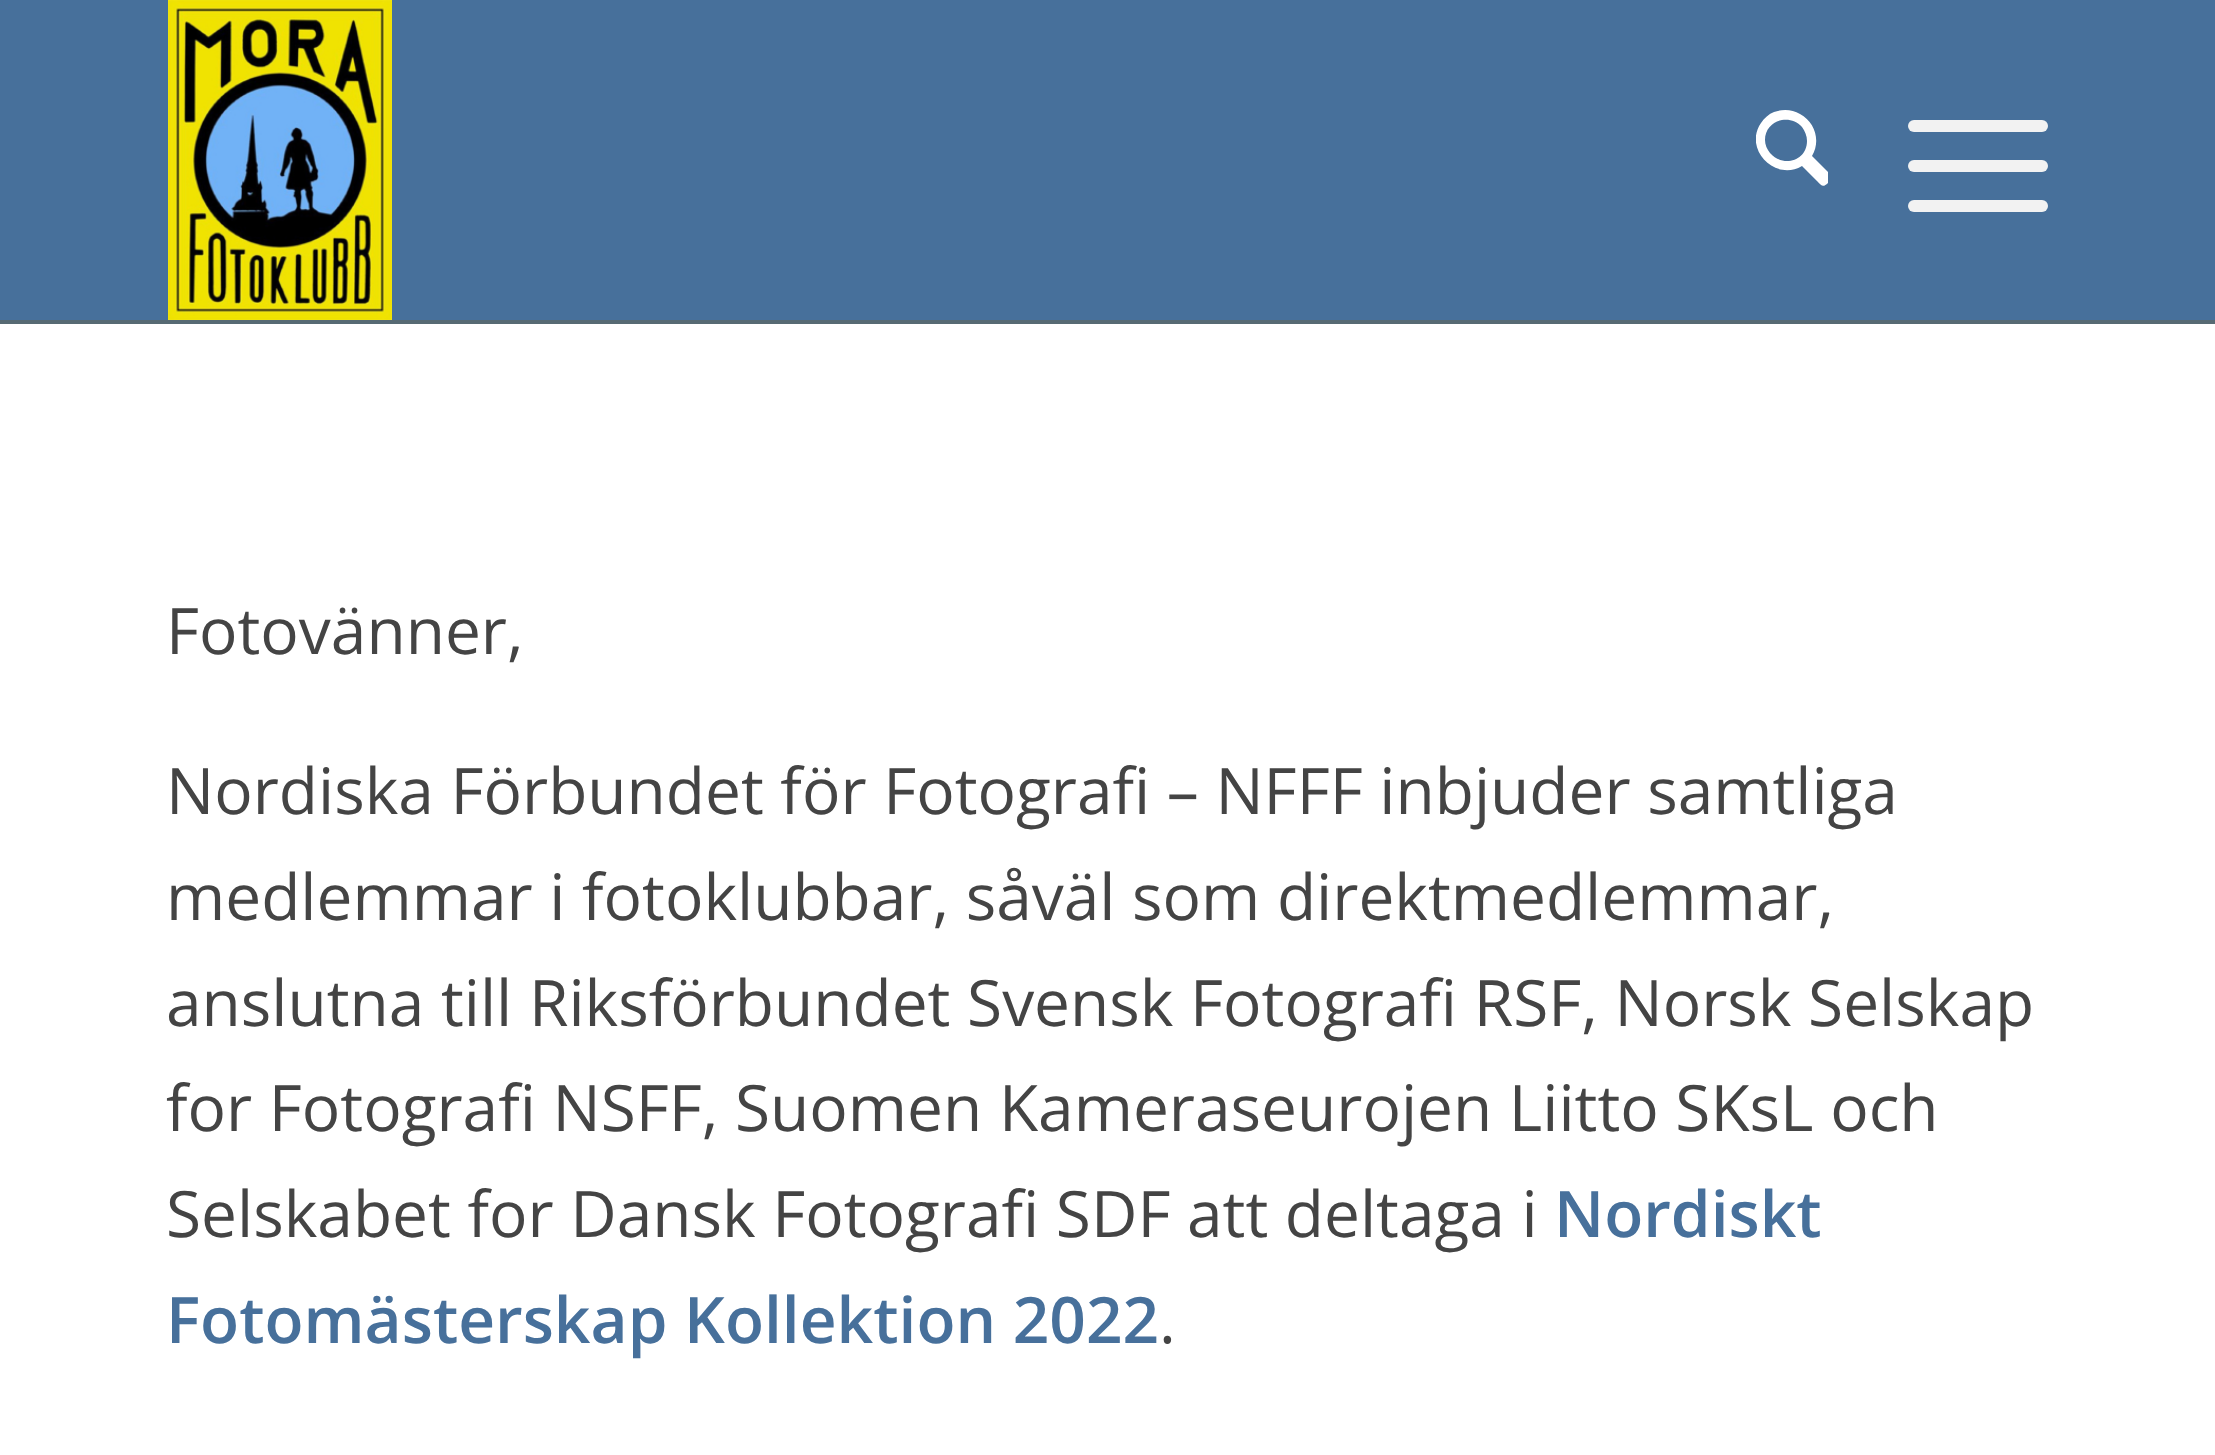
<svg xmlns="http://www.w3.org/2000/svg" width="2215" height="1455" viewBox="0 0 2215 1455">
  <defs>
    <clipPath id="clip1"><rect x="1756" y="100" width="72" height="96"/></clipPath>
  </defs>
  <rect width="100%" height="100%" fill="#ffffff"/>
  <rect x="0" y="0" width="2215" height="320" fill="#47709b"/>
  <rect x="0" y="320" width="2215" height="4" fill="#576a73"/>
  <image x="168" y="0" width="224" height="320" href="img1.png"/>
  <g clip-path="url(#clip1)">
    <path d="M1830 174C1832 176 1832 178 1831 180C1824 187 1823 188 1817 181L1802 166C1775 182 1743 149 1761 123C1764 118 1769 114 1774 112C1782 109 1792 109 1800 114C1815 122 1821 141 1812 156ZM1765 140C1765 145 1767 149 1770 153C1783 168 1807 161 1807 141C1807 136 1805 131 1802 127C1790 113 1765 120 1765 140Z" fill="#ffffff"/>
  </g>
  <rect x="1908" y="160" width="140" height="12" rx="6" fill="#f2f2f2"/>
  <rect x="1908" y="120" width="140" height="12" rx="6" fill="#f2f2f2"/>
  <rect x="1908" y="200" width="140" height="12" rx="6" fill="#f2f2f2"/>
  <text x="166" y="654" font-family="Open Sans" font-size="64" fill="#444444">Fotovänner,</text>
  <text x="166" y="814" font-family="Open Sans" font-size="64" fill="#444444">Nordiska Förbundet för Fotografi – NFFF inbjuder samtliga</text>
  <text x="166" y="920" font-family="Open Sans" font-size="64" fill="#444444">medlemmar i fotoklubbar, såväl som direktmedlemmar,</text>
  <text x="166" y="1026" font-family="Open Sans" font-size="64" fill="#444444">anslutna till Riksförbundet Svensk Fotografi RSF, Norsk Selskap</text>
  <text x="166" y="1131" font-family="Open Sans" font-size="64" fill="#444444">for Fotografi NSFF, Suomen Kameraseurojen Liitto SKsL och</text>
  <text x="166" y="1237" font-family="Open Sans" font-size="64" fill="#444444">Selskabet for Dansk Fotografi SDF att deltaga i</text>
  <text x="1554" y="1237" font-family="Open Sans" font-size="64" font-weight="600" fill="#47709b">Nordiskt</text>
  <text x="166" y="1343" font-family="Open Sans" font-size="64" font-weight="600" fill="#47709b">Fotomästerskap Kollektion 2022</text>
  <text x="1159" y="1343" font-family="Open Sans" font-size="64" fill="#444444">.</text>
</svg>
